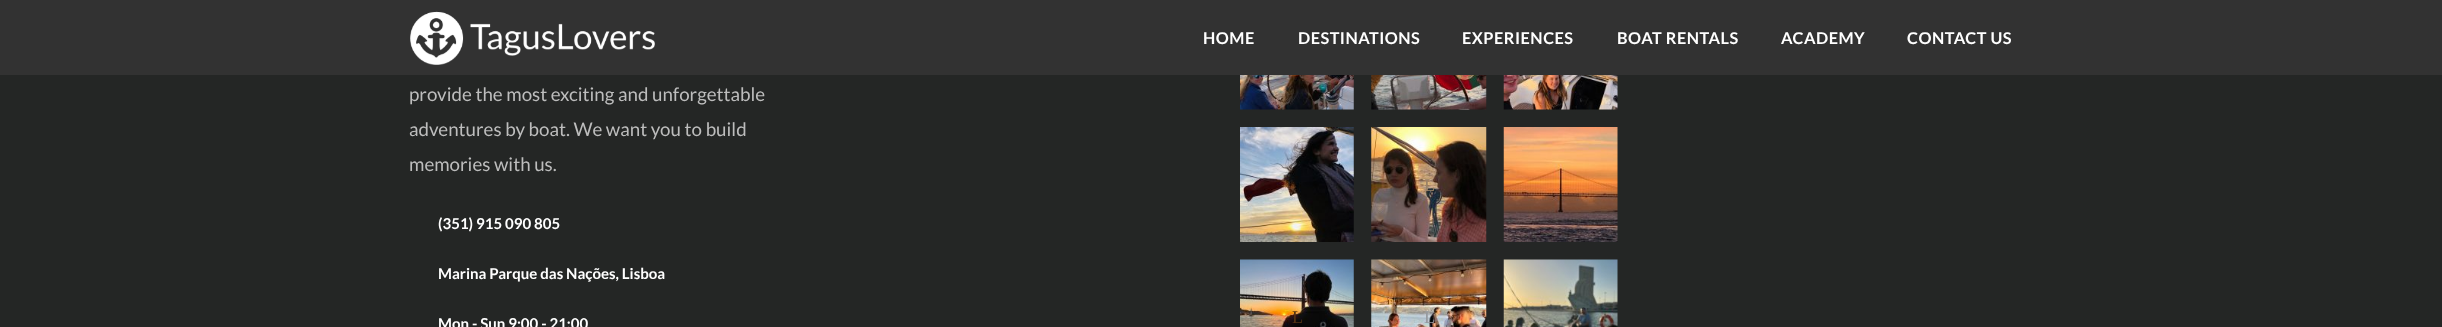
<svg xmlns="http://www.w3.org/2000/svg" width="2442" height="327" viewBox="0 0 2442 327">
  <rect width="100%" height="100%" fill="#242625"/>
  <rect x="0" y="0" width="2442" height="75" fill="#323232"/>
  <image x="410" y="11" width="245" height="54" href="img1.png"/>
  <text x="1203" y="44" font-family="Lato" font-size="16.25" font-weight="bold" letter-spacing="0.5" fill="#ffffff">HOME</text>
  <text x="1298" y="44" font-family="Lato" font-size="16.25" font-weight="bold" letter-spacing="0.5" fill="#ffffff">DESTINATIONS</text>
  <text x="1462" y="44" font-family="Lato" font-size="16.25" font-weight="bold" letter-spacing="0.5" fill="#ffffff">EXPERIENCES</text>
  <text x="1617" y="44" font-family="Lato" font-size="16.25" font-weight="bold" letter-spacing="0.5" fill="#ffffff">BOAT RENTALS</text>
  <text x="1781" y="44" font-family="Lato" font-size="16.25" font-weight="bold" letter-spacing="0.5" fill="#ffffff">ACADEMY</text>
  <text x="1907" y="44" font-family="Lato" font-size="16.25" font-weight="bold" letter-spacing="0.5" fill="#ffffff">CONTACT US</text>
  <text x="409" y="101" font-family="Lato" font-size="18.75" fill="#bdbdbd">provide the most exciting and unforgettable</text>
  <text x="409" y="136" font-family="Lato" font-size="18.75" fill="#bdbdbd">adventures by boat. We want you to build</text>
  <text x="409" y="171" font-family="Lato" font-size="18.75" fill="#bdbdbd">memories with us.</text>
  <text x="438" y="229" font-family="Lato" font-size="15" font-weight="bold" fill="#ffffff">(351) 915 090 805</text>
  <text x="438" y="279" font-family="Lato" font-size="15" font-weight="bold" fill="#ffffff">Marina Parque das Nações, Lisboa</text>
  <text x="438" y="329" font-family="Lato" font-size="15" font-weight="bold" fill="#ffffff">Mon - Sun 9:00 - 21:00</text>
  <image x="1240" y="75" width="114" height="35" href="img2.png"/>
  <image x="1371" y="75" width="116" height="35" href="img3.png"/>
  <image x="1503" y="75" width="115" height="35" href="img4.png"/>
  <image x="1240" y="127" width="114" height="115" href="img5.png"/>
  <image x="1371" y="127" width="116" height="115" href="img6.png"/>
  <text x="1424" y="191" font-family="Liberation Serif" font-size="18" fill="#9b8368">L</text>
  <image x="1503" y="127" width="115" height="115" href="img7.png"/>
  <image x="1240" y="259" width="114" height="68" href="img8.png"/>
  <text x="1292" y="323" font-family="Liberation Serif" font-size="18" fill="#523214">L</text>
  <image x="1371" y="259" width="116" height="68" href="img9.png"/>
  <text x="1424" y="323" font-family="Liberation Serif" font-size="18" fill="#969a9f">L</text>
  <image x="1503" y="259" width="115" height="68" href="img10.png"/>
</svg>
